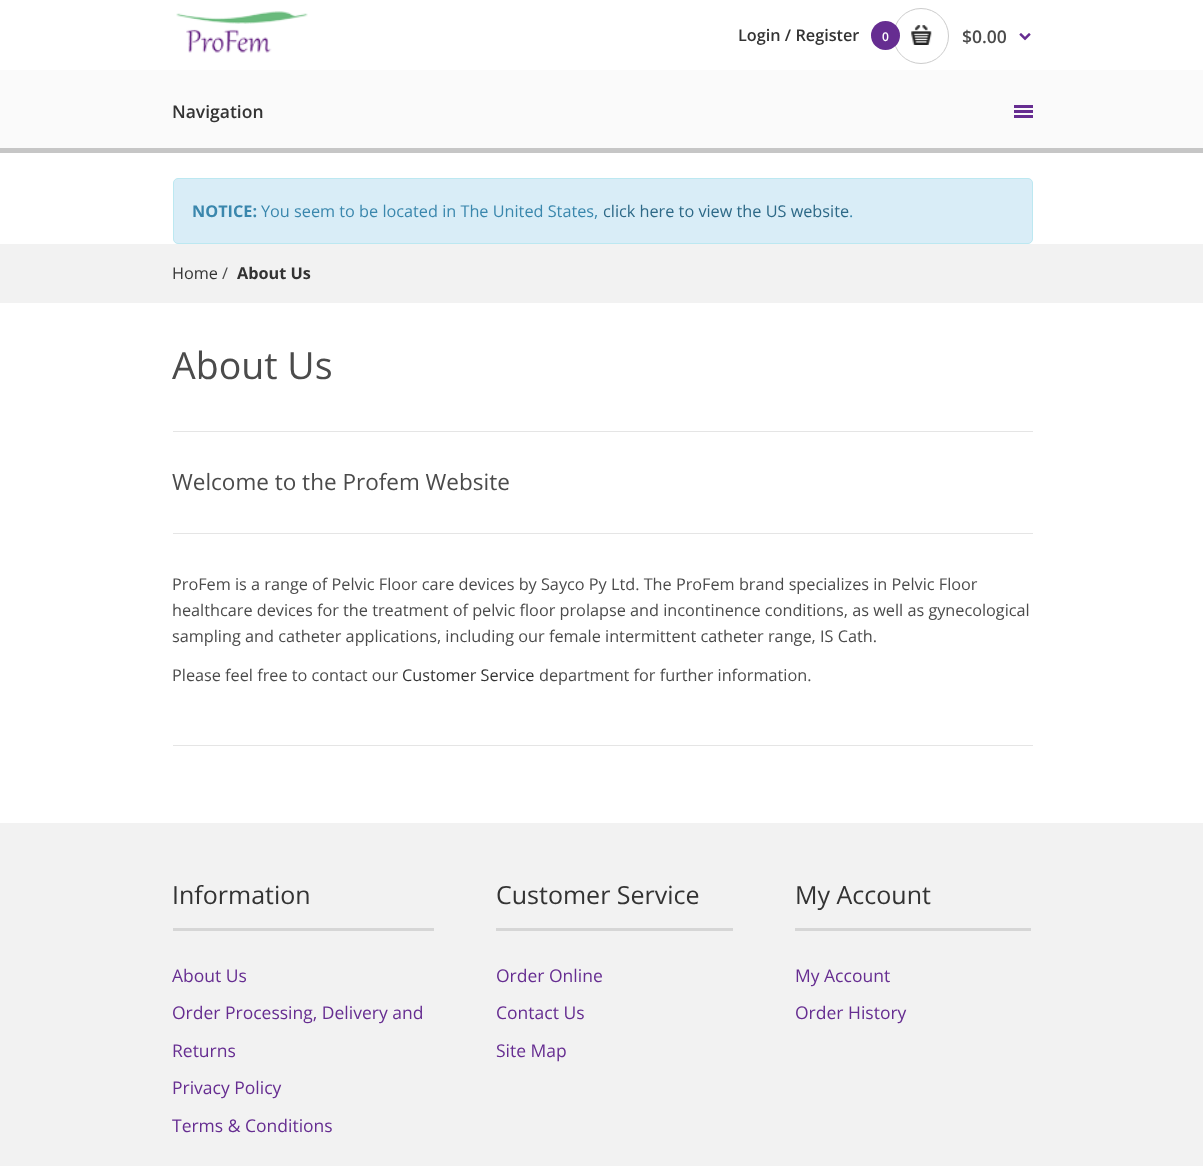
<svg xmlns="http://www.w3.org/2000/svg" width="1203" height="1166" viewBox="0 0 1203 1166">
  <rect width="100%" height="100%" fill="#ffffff"/>
  <image x="176" y="11" width="132" height="42" href="img1.png"/>
  <text x="738" y="41" font-family="Open Sans" font-size="16.25" font-weight="600" fill="#333333">Login / Register</text>
  <circle cx="921" cy="36" r="27.5" fill="none" stroke="#cccccc"/>
  <circle cx="885.5" cy="35.5" r="14.5" fill="#662d91"/>
  <text x="882" y="41" font-family="Open Sans" font-size="12" font-weight="600" fill="#ffffff">0</text>
  <image x="911" y="25" width="21" height="20" href="img2.png"/>
  <text x="962" y="43" font-family="Open Sans" font-size="17.5" font-weight="600" fill="#4b4b4b">$0.00</text>
  <image x="1019" y="33" width="12" height="8" href="img3.png"/>
  <rect x="0" y="148" width="1203" height="5" fill="#c6c6c6"/>
  <rect x="0" y="70" width="1203" height="78" fill="#fafafa"/>
  <text x="172" y="118" font-family="Open Sans" font-size="17.5" font-weight="600" fill="#333333">Navigation</text>
  <rect x="1014" y="105" width="19" height="3" fill="#662d91"/>
  <rect x="1014" y="110" width="19" height="3" fill="#662d91"/>
  <rect x="1014" y="115" width="19" height="3" fill="#662d91"/>
  <rect x="173.5" y="178.5" width="859" height="65" rx="4.5" fill="#d9edf7" stroke="#bce8f1"/>
  <text x="192" y="217" font-family="Open Sans" font-size="16.25" font-weight="bold" fill="#3a87ad">NOTICE:</text>
  <text x="261" y="217" font-family="Open Sans" font-size="16.25" fill="#3a87ad">You seem to be located in The United States,</text>
  <text x="603" y="217" font-family="Open Sans" font-size="16.25" fill="#2d6987">click here to view the US website</text>
  <text x="849" y="217" font-family="Open Sans" font-size="16.25" fill="#3a87ad">.</text>
  <rect x="0" y="244" width="1203" height="59" fill="#f2f2f2"/>
  <text x="172" y="279" font-family="Open Sans" font-size="16.25" fill="#333333">Home</text>
  <text x="222" y="279" font-family="Open Sans" font-size="16.25" fill="#4b4b4b">/</text>
  <text x="237" y="279" font-family="Open Sans" font-size="16.25" font-weight="bold" fill="#333333">About Us</text>
  <text x="172" y="379" font-family="Open Sans" font-size="37.5" fill="#4b4b4b">About Us</text>
  <rect x="173" y="745" width="860" height="1" fill="#e5e5e5"/>
  <rect x="173" y="431" width="860" height="1" fill="#e5e5e5"/>
  <text x="172" y="490" font-family="Open Sans" font-size="22.5" fill="#4b4b4b">Welcome to the Profem Website</text>
  <rect x="173" y="533" width="860" height="1" fill="#e5e5e5"/>
  <text x="172" y="590" font-family="Open Sans" font-size="16.25" fill="#4b4b4b">ProFem is a range of Pelvic Floor care devices by Sayco Py Ltd. The ProFem brand specializes in Pelvic Floor</text>
  <text x="172" y="616" font-family="Open Sans" font-size="16.25" fill="#4b4b4b">healthcare devices for the treatment of pelvic floor prolapse and incontinence conditions, as well as gynecological</text>
  <text x="172" y="642" font-family="Open Sans" font-size="16.25" fill="#4b4b4b">sampling and catheter applications, including our female intermittent catheter range, IS Cath.</text>
  <text x="172" y="681" font-family="Open Sans" font-size="16.25" fill="#4b4b4b">Please feel free to contact our</text>
  <text x="402" y="681" font-family="Open Sans" font-size="16.25" fill="#333333">Customer Service</text>
  <text x="539" y="681" font-family="Open Sans" font-size="16.25" fill="#4b4b4b">department for further information.</text>
  <rect x="0" y="823" width="1203" height="343" fill="#f2f2f2"/>
  <rect x="173" y="928" width="261" height="3" fill="#d6d6d6"/>
  <text x="172" y="904" font-family="Open Sans" font-size="25" fill="#333333">Information</text>
  <text x="172" y="982" font-family="Open Sans" font-size="17.5" fill="#662d91">About Us</text>
  <text x="172" y="1019" font-family="Open Sans" font-size="17.5" fill="#662d91">Order Processing, Delivery and</text>
  <text x="172" y="1057" font-family="Open Sans" font-size="17.5" fill="#662d91">Returns</text>
  <text x="172" y="1094" font-family="Open Sans" font-size="17.5" fill="#662d91">Privacy Policy</text>
  <text x="172" y="1132" font-family="Open Sans" font-size="17.5" fill="#662d91">Terms &amp; Conditions</text>
  <rect x="496" y="928" width="237" height="3" fill="#d6d6d6"/>
  <text x="496" y="904" font-family="Open Sans" font-size="25" fill="#333333">Customer Service</text>
  <text x="496" y="982" font-family="Open Sans" font-size="17.5" fill="#662d91">Order Online</text>
  <text x="496" y="1019" font-family="Open Sans" font-size="17.5" fill="#662d91">Contact Us</text>
  <text x="496" y="1057" font-family="Open Sans" font-size="17.5" fill="#662d91">Site Map</text>
  <rect x="795" y="928" width="236" height="3" fill="#d6d6d6"/>
  <text x="795" y="904" font-family="Open Sans" font-size="25" fill="#333333">My Account</text>
  <text x="795" y="982" font-family="Open Sans" font-size="17.5" fill="#662d91">My Account</text>
  <text x="795" y="1019" font-family="Open Sans" font-size="17.5" fill="#662d91">Order History</text>
</svg>
